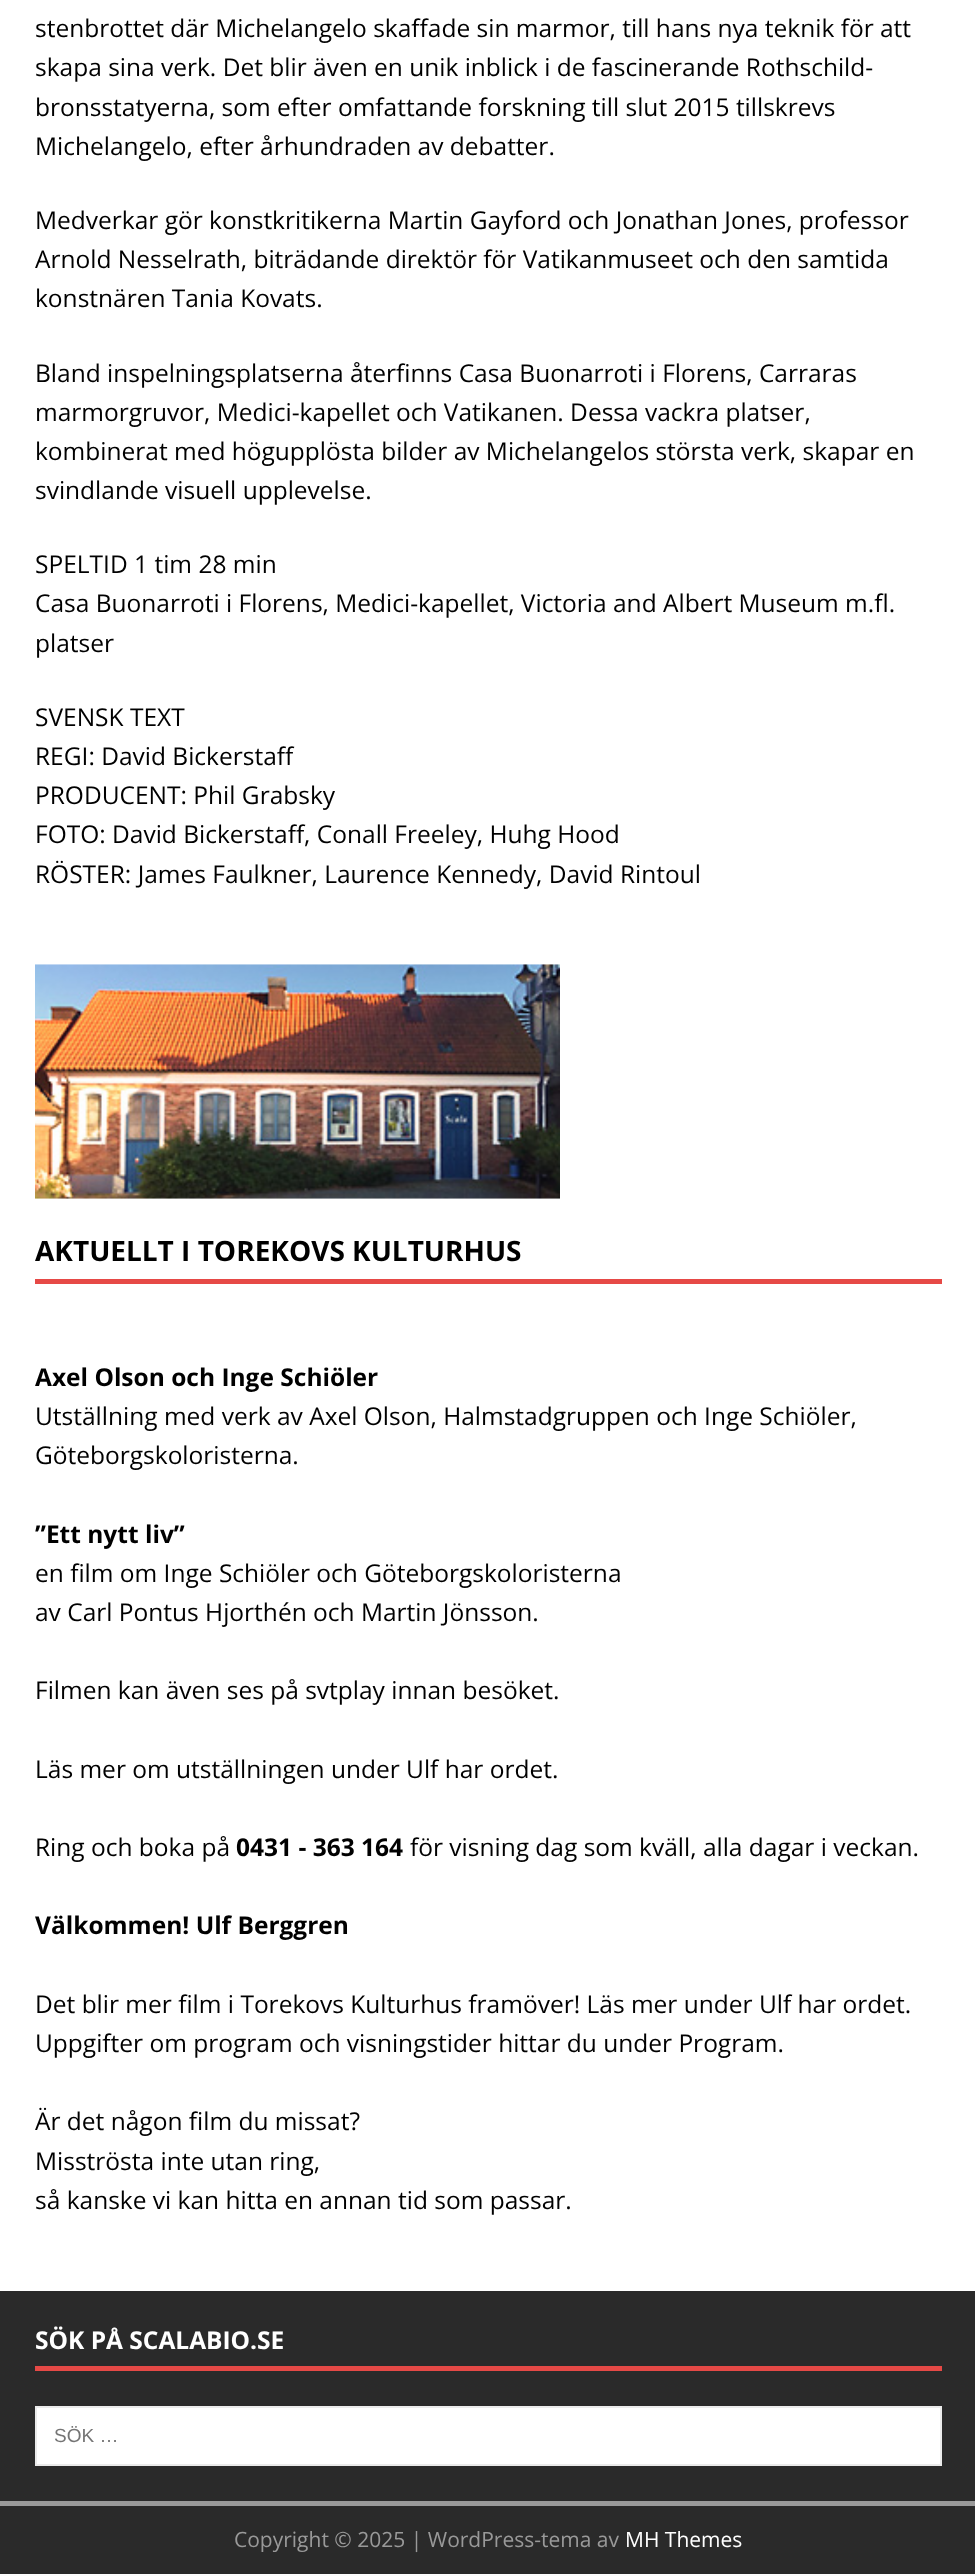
<svg xmlns="http://www.w3.org/2000/svg" width="975" height="2574" viewBox="0 0 975 2574">
  <defs>
    <clipPath id="clip1"><rect x="54" y="2426" width="847" height="21"/></clipPath>
  </defs>
  <rect width="100%" height="100%" fill="#ffffff"/>
  <text x="35" y="37" font-family="Open Sans" font-size="24.5" fill="#000000">stenbrottet där Michelangelo skaffade sin marmor, till hans nya teknik för att</text>
  <text x="35" y="76" font-family="Open Sans" font-size="24.5" fill="#000000">skapa sina verk. Det blir även en unik inblick i de fascinerande Rothschild-</text>
  <text x="35" y="116" font-family="Open Sans" font-size="24.5" fill="#000000">bronsstatyerna, som efter omfattande forskning till slut 2015 tillskrevs</text>
  <text x="35" y="155" font-family="Open Sans" font-size="24.5" fill="#000000">Michelangelo, efter århundraden av debatter.</text>
  <text x="35" y="229" font-family="Open Sans" font-size="24.5" fill="#000000">Medverkar gör konstkritikerna Martin Gayford och Jonathan Jones, professor</text>
  <text x="35" y="268" font-family="Open Sans" font-size="24.5" fill="#000000">Arnold Nesselrath, biträdande direktör för Vatikanmuseet och den samtida</text>
  <text x="35" y="307" font-family="Open Sans" font-size="24.5" fill="#000000">konstnären Tania Kovats.</text>
  <text x="35" y="382" font-family="Open Sans" font-size="24.5" fill="#000000">Bland inspelningsplatserna återfinns Casa Buonarroti i Florens, Carraras</text>
  <text x="35" y="421" font-family="Open Sans" font-size="24.5" fill="#000000">marmorgruvor, Medici-kapellet och Vatikanen. Dessa vackra platser,</text>
  <text x="35" y="460" font-family="Open Sans" font-size="24.5" fill="#000000">kombinerat med högupplösta bilder av Michelangelos största verk, skapar en</text>
  <text x="35" y="499" font-family="Open Sans" font-size="24.5" fill="#000000">svindlande visuell upplevelse.</text>
  <text x="35" y="573" font-family="Open Sans" font-size="24.5" fill="#000000">SPELTID 1 tim 28 min</text>
  <text x="35" y="612" font-family="Open Sans" font-size="24.5" fill="#000000">Casa Buonarroti i Florens, Medici-kapellet, Victoria and Albert Museum m.fl.</text>
  <text x="35" y="652" font-family="Open Sans" font-size="24.5" fill="#000000">platser</text>
  <text x="35" y="726" font-family="Open Sans" font-size="24.5" fill="#000000">SVENSK TEXT</text>
  <text x="35" y="765" font-family="Open Sans" font-size="24.5" fill="#000000">REGI: David Bickerstaff</text>
  <text x="35" y="804" font-family="Open Sans" font-size="24.5" fill="#000000">PRODUCENT: Phil Grabsky</text>
  <text x="35" y="843" font-family="Open Sans" font-size="24.5" fill="#000000">FOTO: David Bickerstaff, Conall Freeley, Huhg Hood</text>
  <text x="35" y="883" font-family="Open Sans" font-size="24.5" fill="#000000">RÖSTER: James Faulkner, Laurence Kennedy, David Rintoul</text>
  <image x="35" y="964" width="525" height="235" href="img1.png"/>
  <rect x="35" y="1279" width="907" height="5" fill="#e64946"/>
  <text x="35" y="1261" font-family="Open Sans" font-size="28" font-weight="bold" fill="#000000">AKTUELLT I TOREKOVS KULTURHUS</text>
  <text x="35" y="1386" font-family="Open Sans" font-size="24.5" font-weight="bold" fill="#000000">Axel Olson och Inge Schiöler</text>
  <text x="35" y="1425" font-family="Open Sans" font-size="24.5" fill="#000000">Utställning med verk av Axel Olson, Halmstadgruppen och Inge Schiöler,</text>
  <text x="35" y="1464" font-family="Open Sans" font-size="24.5" fill="#000000">Göteborgskoloristerna.</text>
  <text x="35" y="1543" font-family="Open Sans" font-size="24.5" font-weight="bold" fill="#000000">”Ett nytt liv”</text>
  <text x="35" y="1582" font-family="Open Sans" font-size="24.5" fill="#000000">en film om Inge Schiöler och Göteborgskoloristerna</text>
  <text x="35" y="1621" font-family="Open Sans" font-size="24.5" fill="#000000">av Carl Pontus Hjorthén och Martin Jönsson.</text>
  <text x="35" y="1699" font-family="Open Sans" font-size="24.5" fill="#000000">Filmen kan även ses på svtplay innan besöket.</text>
  <text x="35" y="1778" font-family="Open Sans" font-size="24.5" fill="#000000">Läs mer om utställningen under Ulf har ordet.</text>
  <text x="35" y="1856" font-family="Open Sans" font-size="24.5" fill="#000000">Ring och boka på</text>
  <text x="236" y="1856" font-family="Open Sans" font-size="24.5" font-weight="bold" fill="#000000">0431 - 363 164</text>
  <text x="410" y="1856" font-family="Open Sans" font-size="24.5" fill="#000000">för visning dag som kväll, alla dagar i veckan.</text>
  <text x="35" y="1934" font-family="Open Sans" font-size="24.5" font-weight="bold" fill="#000000">Välkommen! Ulf Berggren</text>
  <text x="35" y="2013" font-family="Open Sans" font-size="24.5" fill="#000000">Det blir mer film i Torekovs Kulturhus framöver! Läs mer under Ulf har ordet.</text>
  <text x="35" y="2052" font-family="Open Sans" font-size="24.5" fill="#000000">Uppgifter om program och visningstider hittar du under Program.</text>
  <text x="35" y="2130" font-family="Open Sans" font-size="24.5" fill="#000000">Är det någon film du missat?</text>
  <text x="35" y="2170" font-family="Open Sans" font-size="24.5" fill="#000000">Misströsta inte utan ring,</text>
  <text x="35" y="2209" font-family="Open Sans" font-size="24.5" fill="#000000">så kanske vi kan hitta en annan tid som passar.</text>
  <rect x="0" y="2291" width="975" height="210" fill="#2a2a2a"/>
  <rect x="35" y="2366" width="907" height="5" fill="#e64946"/>
  <text x="35" y="2349" font-family="Open Sans" font-size="24.5" font-weight="bold" fill="#ffffff">SÖK PÅ SCALABIO.SE</text>
  <rect x="36" y="2407" width="905" height="58" fill="#ffffff" stroke="#ebebeb" stroke-width="2"/>
  <g clip-path="url(#clip1)">
    <text x="54" y="2442" font-family="Liberation Sans" font-size="19" fill="#757575">SÖK …</text>
  </g>
  <rect x="0" y="2506" width="975" height="68" fill="#2a2a2a"/>
  <rect x="0" y="2501" width="975" height="5" fill="#999999"/>
  <text x="234" y="2547" font-family="Open Sans" font-size="21" fill="#999999">Copyright © 2025 | WordPress-tema av</text>
  <text x="625" y="2547" font-family="Open Sans" font-size="21" fill="#ffffff">MH Themes</text>
</svg>
